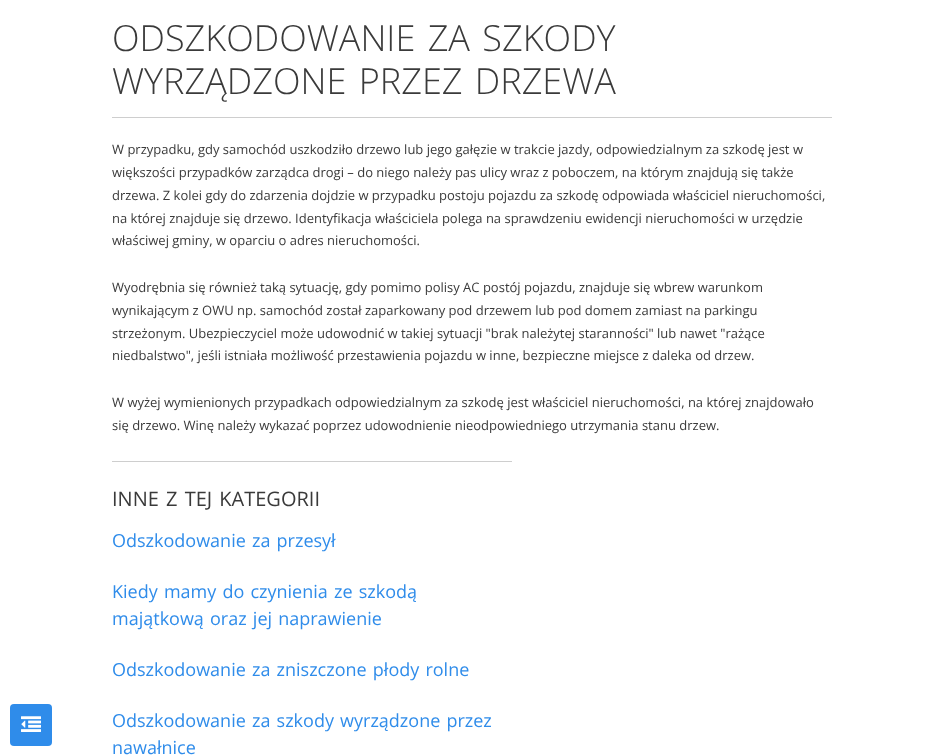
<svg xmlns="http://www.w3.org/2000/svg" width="944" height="756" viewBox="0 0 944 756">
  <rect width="100%" height="100%" fill="#ffffff"/>
  <rect x="10" y="704" width="42" height="42" rx="4" fill="#2f8cea"/>
  <image x="21" y="716" width="20" height="16" href="img1.png"/>
  <rect x="112" y="117" width="720" height="1" fill="#cecece"/>
  <text x="112" y="51" word-spacing="3" font-family="Open Sans" font-size="36" font-weight="300" fill="#3a3a3a">ODSZKODOWANIE ZA SZKODY</text>
  <text x="112" y="94" word-spacing="3" font-family="Open Sans" font-size="36" font-weight="300" fill="#3a3a3a">WYRZĄDZONE PRZEZ DRZEWA</text>
  <text x="112" y="154" font-family="Open Sans" font-size="13" fill="#3a3a3a">W przypadku, gdy samochód uszkodziło drzewo lub jego gałęzie w trakcie jazdy, odpowiedzialnym za szkodę jest w</text>
  <text x="112" y="177" font-family="Open Sans" font-size="13" fill="#3a3a3a">większości przypadków zarządca drogi – do niego należy pas ulicy wraz z poboczem, na którym znajdują się także</text>
  <text x="112" y="200" font-family="Open Sans" font-size="13" fill="#3a3a3a">drzewa. Z kolei gdy do zdarzenia dojdzie w przypadku postoju pojazdu za szkodę odpowiada właściciel nieruchomości,</text>
  <text x="112" y="223" font-family="Open Sans" font-size="13" fill="#3a3a3a">na której znajduje się drzewo. Identyfikacja właściciela polega na sprawdzeniu ewidencji nieruchomości w urzędzie</text>
  <text x="112" y="245" font-family="Open Sans" font-size="13" fill="#3a3a3a">właściwej gminy, w oparciu o adres nieruchomości.</text>
  <text x="112" y="292" font-family="Open Sans" font-size="13" fill="#3a3a3a">Wyodrębnia się również taką sytuację, gdy pomimo polisy AC postój pojazdu, znajduje się wbrew warunkom</text>
  <text x="112" y="315" font-family="Open Sans" font-size="13" fill="#3a3a3a">wynikającym z OWU np. samochód został zaparkowany pod drzewem lub pod domem zamiast na parkingu</text>
  <text x="112" y="338" font-family="Open Sans" font-size="13" fill="#3a3a3a">strzeżonym. Ubezpieczyciel może udowodnić w takiej sytuacji "brak należytej staranności" lub nawet "rażące</text>
  <text x="112" y="360" font-family="Open Sans" font-size="13" fill="#3a3a3a">niedbalstwo", jeśli istniała możliwość przestawienia pojazdu w inne, bezpieczne miejsce z daleka od drzew.</text>
  <text x="112" y="407" font-family="Open Sans" font-size="13" fill="#3a3a3a">W wyżej wymienionych przypadkach odpowiedzialnym za szkodę jest właściciel nieruchomości, na której znajdowało</text>
  <text x="112" y="430" font-family="Open Sans" font-size="13" fill="#3a3a3a">się drzewo. Winę należy wykazać poprzez udowodnienie nieodpowiedniego utrzymania stanu drzew.</text>
  <rect x="112" y="461" width="400" height="1" fill="#cecece"/>
  <text x="112" y="506" word-spacing="2" font-family="Open Sans" font-size="20" fill="#3a3a3a">INNE Z TEJ KATEGORII</text>
  <text x="112" y="547" word-spacing="1.5" font-family="Open Sans" font-size="18" fill="#2f8cea">Odszkodowanie za przesył</text>
  <text x="112" y="598" word-spacing="1.5" font-family="Open Sans" font-size="18" fill="#2f8cea">Kiedy mamy do czynienia ze szkodą</text>
  <text x="112" y="625" word-spacing="1.5" font-family="Open Sans" font-size="18" fill="#2f8cea">majątkową oraz jej naprawienie</text>
  <text x="112" y="676" word-spacing="1.5" font-family="Open Sans" font-size="18" fill="#2f8cea">Odszkodowanie za zniszczone płody rolne</text>
  <text x="112" y="727" word-spacing="1.5" font-family="Open Sans" font-size="18" fill="#2f8cea">Odszkodowanie za szkody wyrządzone przez</text>
  <text x="112" y="754" font-family="Open Sans" font-size="18" fill="#2f8cea">nawałnice</text>
</svg>
